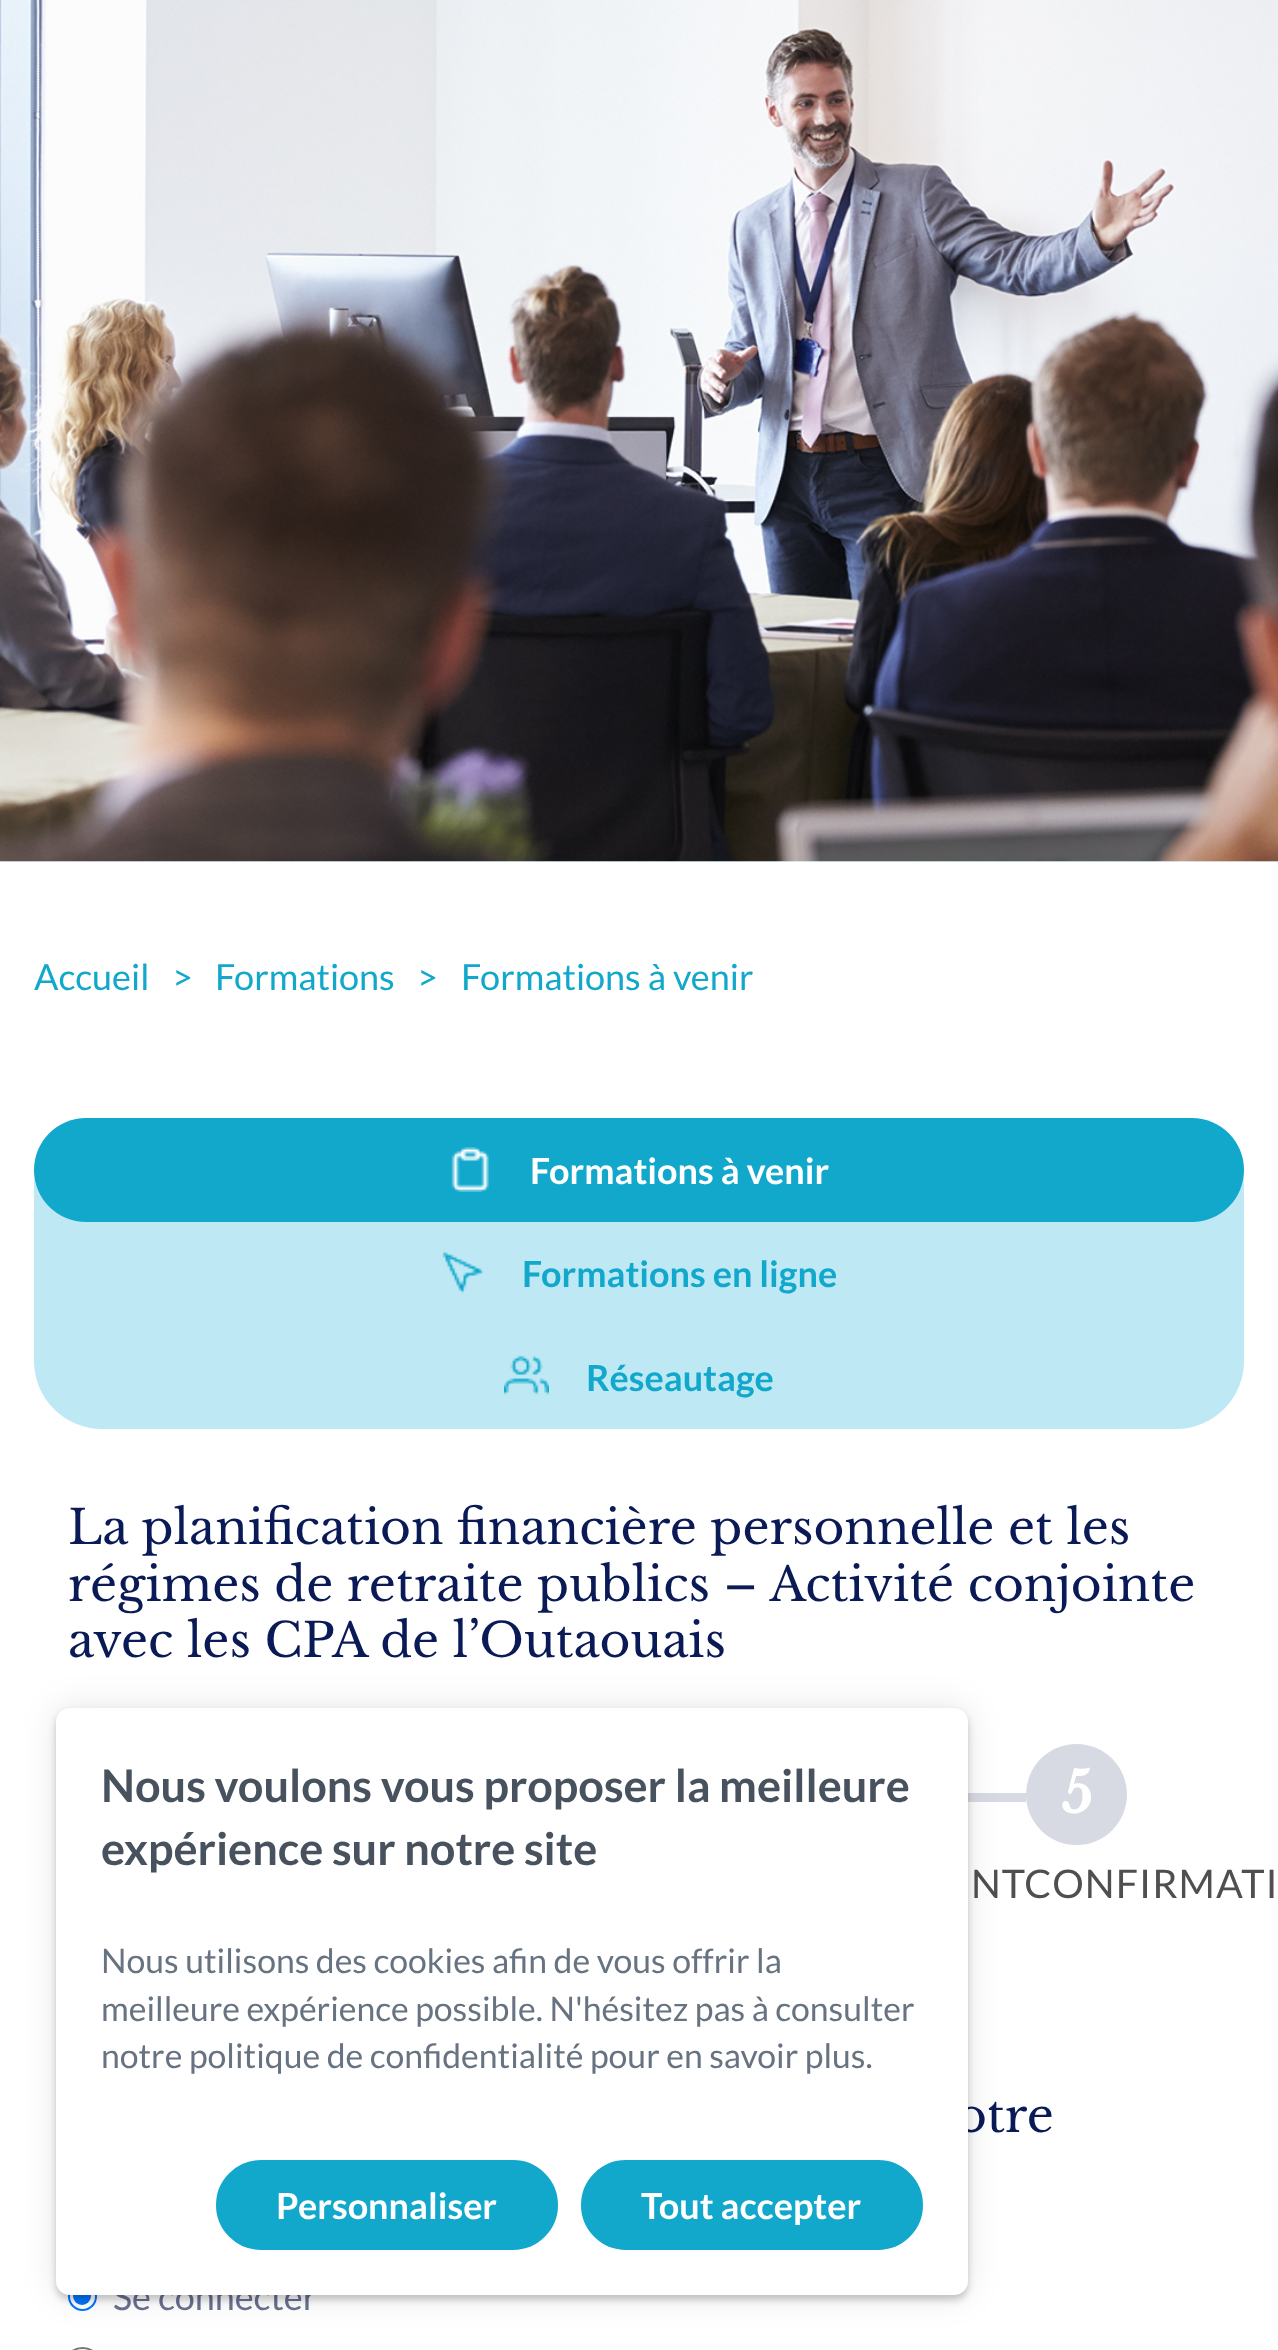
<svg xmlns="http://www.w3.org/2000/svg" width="1278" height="2350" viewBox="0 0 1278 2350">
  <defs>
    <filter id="blur1" x="-50%" y="-200%" width="200%" height="500%"><feGaussianBlur stdDeviation="17"/></filter>
    <filter id="blur2" x="-50%" y="-200%" width="200%" height="500%"><feGaussianBlur stdDeviation="3.5"/></filter>
  </defs>
  <rect width="100%" height="100%" fill="#ffffff"/>
  <rect x="0" y="861" width="1278" height="1" fill="#e1f9ff"/>
  <image x="0" y="0" width="1278" height="862" href="img1.png"/>
  <text x="34" y="990" font-family="Lato" font-size="36" fill="#12a8cc">Accueil</text>
  <text x="172" y="990" font-family="Lato" font-size="36" fill="#12a8cc">&gt;</text>
  <text x="215" y="990" font-family="Lato" font-size="36" fill="#12a8cc">Formations</text>
  <text x="417" y="990" font-family="Lato" font-size="36" fill="#12a8cc">&gt;</text>
  <text x="461" y="990" font-family="Lato" font-size="36" fill="#12a8cc">Formations à venir</text>
  <rect x="34" y="1118" width="1210" height="311" rx="68" fill="#bee9f4"/>
  <rect x="34" y="1118" width="1210" height="104" rx="52" fill="#12a8cc"/>
  <image x="451" y="1147" width="38" height="45" href="img2.png"/>
  <text x="530" y="1184" font-family="Lato" font-size="36" font-weight="bold" fill="#ffffff">Formations à venir</text>
  <image x="442" y="1252" width="42" height="42" href="img3.png"/>
  <text x="522" y="1287" font-family="Lato" font-size="36" font-weight="bold" fill="#12a8cc">Formations en ligne</text>
  <image x="504" y="1355" width="45" height="40" href="img4.png"/>
  <text x="586" y="1391" font-family="Lato" font-size="36" font-weight="bold" fill="#12a8cc">Réseautage</text>
  <text x="68" y="1544" font-family="Libre Baskerville" font-size="47.25" fill="#0a1a57">La planification financière personnelle et les</text>
  <text x="68" y="1601" font-family="Libre Baskerville" font-size="47.25" fill="#0a1a57">régimes de retraite publics – Activité conjointe</text>
  <text x="68" y="1657" font-family="Libre Baskerville" font-size="47.25" fill="#0a1a57">avec les CPA de l’Outaouais</text>
  <circle cx="1076.5" cy="1794.5" r="50.5" fill="#d8dae3"/>
  <text x="1061" y="1813" font-family="Libre Baskerville" font-size="56" font-weight="bold" fill="#ffffff">5</text>
  <rect x="968" y="1793" width="58" height="9" fill="#d8dae3"/>
  <text x="971" y="1898" font-family="Lato" font-size="39.5" letter-spacing="1" fill="#4f4f4f">NTCONFIRMATI</text>
  <text x="956" y="2132" font-family="Libre Baskerville" font-size="47.25" fill="#0a1a57">otre</text>
  <circle cx="82.5" cy="2296.5" r="13.5" fill="none" stroke="#0075ff" stroke-width="2"/>
  <circle cx="82" cy="2296" r="9" fill="#0075ff"/>
  <text x="113" y="2310" font-family="Lato" font-size="36" fill="#687091">Se connecter</text>
  <rect x="69" y="2348" width="27" height="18" rx="13.5" fill="none" stroke="#767676" stroke-width="2"/>
  <rect x="56" y="1708" width="912" height="587" rx="14" fill="#000000" fill-opacity="0.1" filter="url(#blur1)"/>
  <rect x="56" y="1712" width="912" height="588" rx="14" fill="#000000" fill-opacity="0.2" filter="url(#blur2)"/>
  <rect x="56" y="1708" width="912" height="587" rx="14" fill="#ffffff"/>
  <text x="101" y="1802" font-family="Lato" font-size="45" font-weight="bold" fill="#48525e">Nous voulons vous proposer la meilleure</text>
  <text x="101" y="1865" font-family="Lato" font-size="45" font-weight="bold" fill="#48525e">expérience sur notre site</text>
  <text x="101" y="1973" font-family="Lato" font-size="33.75" fill="#677380">Nous utilisons des cookies afin de vous offrir la</text>
  <text x="101" y="2021" font-family="Lato" font-size="33.75" fill="#677380">meilleure expérience possible. N'hésitez pas à consulter</text>
  <text x="101" y="2068" font-family="Lato" font-size="33.75" fill="#677380">notre politique de confidentialité pour en savoir plus.</text>
  <rect x="218.5" y="2162.5" width="337" height="85" rx="42.5" fill="#12a8cc" stroke="#12a8cc" stroke-width="5"/>
  <text x="276" y="2219" font-family="Lato" font-size="36" font-weight="bold" fill="#ffffff">Personnaliser</text>
  <rect x="583.5" y="2162.5" width="337" height="85" rx="42.5" fill="#12a8cc" stroke="#12a8cc" stroke-width="5"/>
  <text x="641" y="2219" font-family="Lato" font-size="36" font-weight="bold" fill="#ffffff">Tout accepter</text>
</svg>
